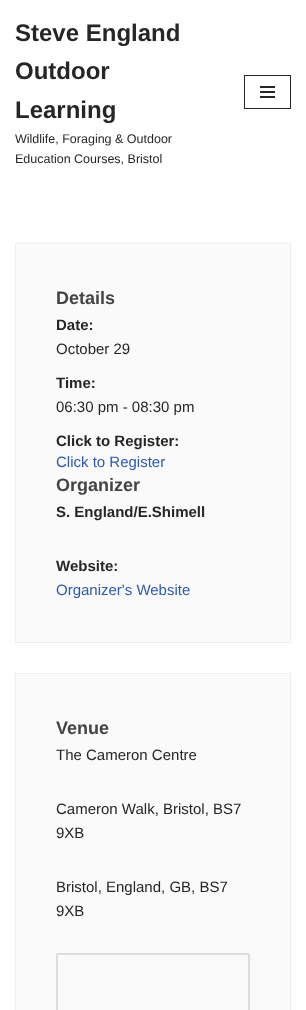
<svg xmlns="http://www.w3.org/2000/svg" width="306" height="1010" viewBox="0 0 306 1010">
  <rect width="100%" height="100%" fill="#ffffff"/>
  <text x="15" y="41" font-family="Liberation Sans" font-size="24" font-weight="bold" fill="#272626">Steve England</text>
  <text x="15" y="79" font-family="Liberation Sans" font-size="24" font-weight="bold" fill="#272626">Outdoor</text>
  <text x="15" y="118" font-family="Liberation Sans" font-size="24" font-weight="bold" fill="#272626">Learning</text>
  <text x="15" y="143" font-family="Liberation Sans" font-size="12.5" fill="#272626">Wildlife, Foraging &amp; Outdoor</text>
  <text x="15" y="163" font-family="Liberation Sans" font-size="12.5" fill="#272626">Education Courses, Bristol</text>
  <rect x="244.5" y="75.5" width="46" height="33" fill="none" stroke="#272626"/>
  <rect x="260" y="86" width="15" height="2" fill="#272626"/>
  <rect x="260" y="91" width="15" height="2" fill="#272626"/>
  <rect x="260" y="96" width="15" height="2" fill="#272626"/>
  <rect x="15.5" y="243.5" width="275" height="399" fill="#fafafa" stroke="#eeeeee"/>
  <text x="56" y="304" font-family="Liberation Sans" font-size="18" font-weight="bold" fill="#444444">Details</text>
  <text x="56" y="330" font-family="Liberation Sans" font-size="15" font-weight="bold" fill="#272626">Date:</text>
  <text x="56" y="354" font-family="Liberation Sans" font-size="15" fill="#272626">October 29</text>
  <text x="56" y="388" font-family="Liberation Sans" font-size="15" font-weight="bold" fill="#272626">Time:</text>
  <text x="56" y="412" font-family="Liberation Sans" font-size="15" fill="#272626">06:30 pm - 08:30 pm</text>
  <text x="56" y="446" font-family="Liberation Sans" font-size="15" font-weight="bold" fill="#272626">Click to Register:</text>
  <text x="56" y="467" font-family="Liberation Sans" font-size="15" fill="#2f5aae">Click to Register</text>
  <text x="56" y="491" font-family="Liberation Sans" font-size="18" font-weight="bold" fill="#444444">Organizer</text>
  <text x="56" y="517" font-family="Liberation Sans" font-size="15" font-weight="bold" fill="#272626">S. England/E.Shimell</text>
  <text x="56" y="571" font-family="Liberation Sans" font-size="15" font-weight="bold" fill="#272626">Website:</text>
  <text x="56" y="595" font-family="Liberation Sans" font-size="15" fill="#2f5aae">Organizer's Website</text>
  <rect x="15.5" y="673.5" width="275" height="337" fill="#fafafa" stroke="#eeeeee"/>
  <text x="56" y="734" font-family="Liberation Sans" font-size="18" font-weight="bold" fill="#444444">Venue</text>
  <text x="56" y="760" font-family="Liberation Sans" font-size="15" fill="#272626">The Cameron Centre</text>
  <text x="56" y="814" font-family="Liberation Sans" font-size="15" fill="#272626">Cameron Walk, Bristol, BS7</text>
  <text x="56" y="838" font-family="Liberation Sans" font-size="15" fill="#272626">9XB</text>
  <text x="56" y="892" font-family="Liberation Sans" font-size="15" fill="#272626">Bristol, England, GB, BS7</text>
  <text x="56" y="916" font-family="Liberation Sans" font-size="15" fill="#272626">9XB</text>
  <rect x="57" y="954" width="192" height="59" rx="1" fill="none" stroke="#dddddd" stroke-width="2"/>
</svg>
